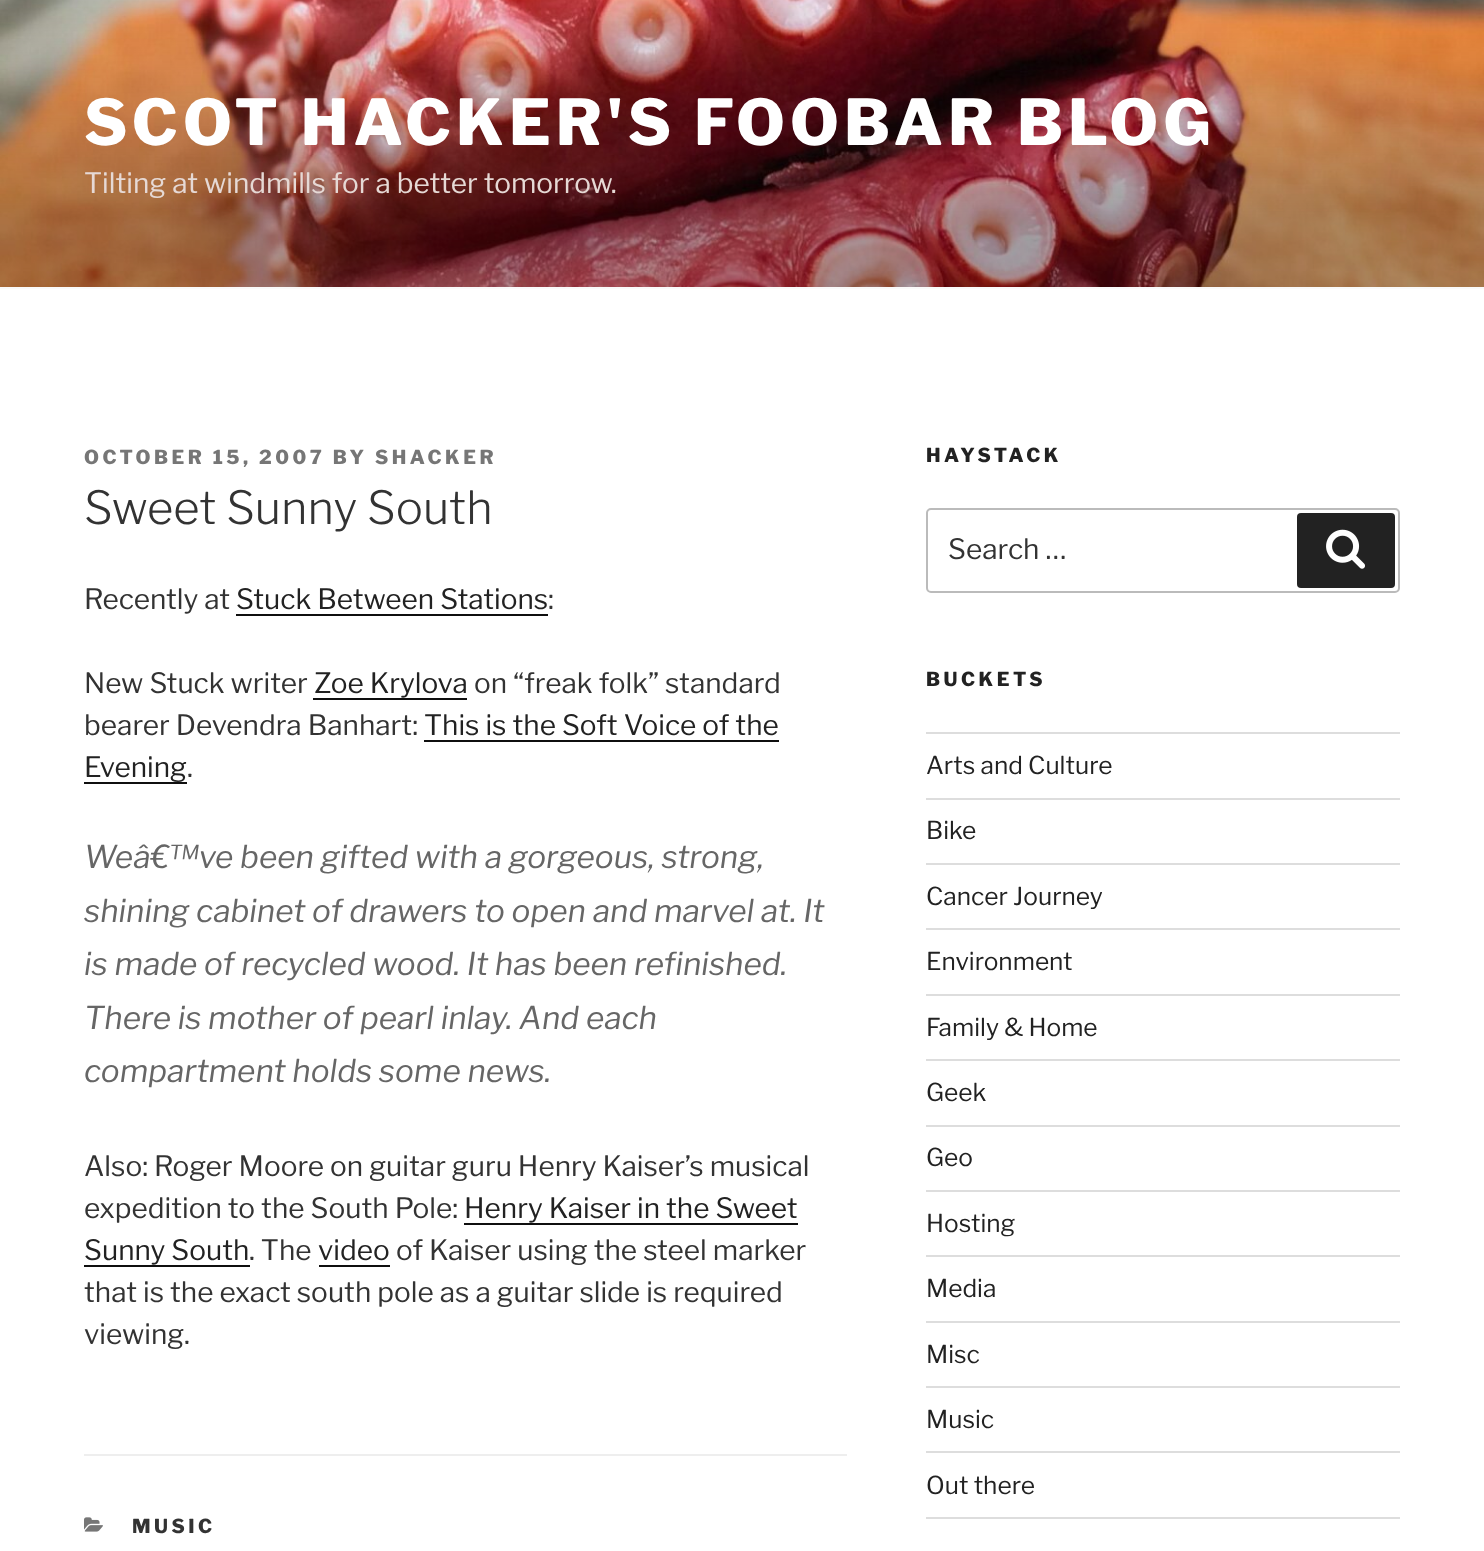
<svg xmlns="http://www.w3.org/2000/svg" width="1484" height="1551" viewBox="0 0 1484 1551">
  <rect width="100%" height="100%" fill="#ffffff"/>
  <rect x="0" y="287" width="1484" height="2" fill="#fafafa"/>
  <image x="0" y="0" width="1484" height="287" href="img1.png"/>
  <text x="84" y="145" font-family="Libre Franklin" font-size="63" font-weight="100" letter-spacing="5.05" fill="#ffffff">SCOT HACKER'S FOOBAR BLOG</text>
  <text x="84" y="193" font-family="'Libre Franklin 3'" font-size="28" font-weight="100" fill="#e6d9d5">Tilting at windmills for a better tomorrow.</text>
  <text x="84" y="464" font-family="Libre Franklin" font-size="19.25" font-weight="100" letter-spacing="3.5" fill="#767676">OCTOBER 15, 2007 BY SHACKER</text>
  <text x="84" y="524" font-family="'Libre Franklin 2'" font-size="45.5" font-weight="100" fill="#333333">Sweet Sunny South</text>
  <text x="84" y="609" font-family="'Libre Franklin 3'" font-size="28" font-weight="100" fill="#333333">Recently at</text>
  <text x="236" y="609" font-family="'Libre Franklin 3'" font-size="28" font-weight="100" fill="#222222">Stuck Between Stations</text>
  <rect x="236" y="614" width="312" height="2" fill="#0f0f0f"/>
  <text x="548" y="609" font-family="'Libre Franklin 3'" font-size="28" font-weight="100" fill="#333333">:</text>
  <text x="84" y="693" font-family="'Libre Franklin 3'" font-size="28" font-weight="100" fill="#333333">New Stuck writer</text>
  <text x="314" y="693" font-family="'Libre Franklin 3'" font-size="28" font-weight="100" fill="#222222">Zoe Krylova</text>
  <rect x="313" y="698" width="154" height="2" fill="#0f0f0f"/>
  <text x="474" y="693" font-family="'Libre Franklin 3'" font-size="28" font-weight="100" fill="#333333">on “freak folk” standard</text>
  <text x="84" y="735" font-family="'Libre Franklin 3'" font-size="28" font-weight="100" fill="#333333">bearer Devendra Banhart:</text>
  <text x="424" y="735" font-family="'Libre Franklin 3'" font-size="28" font-weight="100" fill="#222222">This is the Soft Voice of the</text>
  <rect x="424" y="740" width="355" height="2" fill="#0f0f0f"/>
  <text x="84" y="777" font-family="'Libre Franklin 3'" font-size="28" font-weight="100" fill="#222222">Evening</text>
  <rect x="84" y="782" width="103" height="2" fill="#0f0f0f"/>
  <text x="187" y="777" font-family="'Libre Franklin 3'" font-size="28" font-weight="100" fill="#333333">.</text>
  <text x="84" y="868" font-family="Libre Franklin" font-size="31.5" font-weight="100" font-style="italic" fill="#666666">Weâ€™ve been gifted with a gorgeous, strong,</text>
  <text x="84" y="922" font-family="Libre Franklin" font-size="31.5" font-weight="100" font-style="italic" fill="#666666">shining cabinet of drawers to open and marvel at. It</text>
  <text x="84" y="975" font-family="Libre Franklin" font-size="31.5" font-weight="100" font-style="italic" fill="#666666">is made of recycled wood. It has been refinished.</text>
  <text x="84" y="1029" font-family="Libre Franklin" font-size="31.5" font-weight="100" font-style="italic" fill="#666666">There is mother of pearl inlay. And each</text>
  <text x="84" y="1082" font-family="Libre Franklin" font-size="31.5" font-weight="100" font-style="italic" fill="#666666">compartment holds some news.</text>
  <text x="84" y="1176" font-family="'Libre Franklin 3'" font-size="28" font-weight="100" fill="#333333">Also: Roger Moore on guitar guru Henry Kaiser’s musical</text>
  <text x="84" y="1218" font-family="'Libre Franklin 3'" font-size="28" font-weight="100" fill="#333333">expedition to the South Pole:</text>
  <text x="464" y="1218" font-family="'Libre Franklin 3'" font-size="28" font-weight="100" fill="#222222">Henry Kaiser in the Sweet</text>
  <rect x="464" y="1223" width="334" height="2" fill="#0f0f0f"/>
  <text x="84" y="1260" font-family="'Libre Franklin 3'" font-size="28" font-weight="100" fill="#222222">Sunny South</text>
  <rect x="84" y="1265" width="166" height="2" fill="#0f0f0f"/>
  <text x="249" y="1260" font-family="'Libre Franklin 3'" font-size="28" font-weight="100" fill="#333333">. The</text>
  <text x="318" y="1260" font-family="'Libre Franklin 3'" font-size="28" font-weight="100" fill="#222222">video</text>
  <rect x="319" y="1265" width="71" height="2" fill="#0f0f0f"/>
  <text x="396" y="1260" font-family="'Libre Franklin 3'" font-size="28" font-weight="100" fill="#333333">of Kaiser using the steel marker</text>
  <text x="84" y="1302" font-family="'Libre Franklin 3'" font-size="28" font-weight="100" fill="#333333">that is the exact south pole as a guitar slide is required</text>
  <text x="84" y="1344" font-family="'Libre Franklin 3'" font-size="28" font-weight="100" fill="#333333">viewing.</text>
  <rect x="84" y="1454" width="763" height="2" fill="#eeeeee"/>
  <image x="84" y="1517" width="19" height="15" href="img2.png"/>
  <text x="132" y="1533" font-family="Libre Franklin" font-size="19.25" font-weight="100" letter-spacing="3.5" fill="#333333">MUSIC</text>
  <text x="926" y="462" font-family="Libre Franklin" font-size="19.25" font-weight="100" letter-spacing="3.5" fill="#222222">HAYSTACK</text>
  <rect x="927" y="509" width="472" height="83" rx="4" fill="none" stroke="#bbbbbb" stroke-width="2"/>
  <text x="948" y="559" font-family="'Libre Franklin 3'" font-size="28" font-weight="100" fill="#333333">Search …</text>
  <rect x="1297" y="513" width="98" height="75" rx="4" fill="#222222"/>
  <image x="1326" y="529" width="39" height="40" href="img3.png"/>
  <text x="926" y="686" font-family="Libre Franklin" font-size="19.25" font-weight="100" letter-spacing="3.5" fill="#222222">BUCKETS</text>
  <rect x="926" y="732" width="474" height="2" fill="#dddddd"/>
  <rect x="926" y="798" width="474" height="2" fill="#dddddd"/>
  <text x="926" y="774" font-family="'Libre Franklin 3'" font-size="24.5" font-weight="100" fill="#222222">Arts and Culture</text>
  <rect x="926" y="863" width="474" height="2" fill="#dddddd"/>
  <text x="926" y="839" font-family="'Libre Franklin 3'" font-size="24.5" font-weight="100" fill="#222222">Bike</text>
  <rect x="926" y="928" width="474" height="2" fill="#dddddd"/>
  <text x="926" y="905" font-family="'Libre Franklin 3'" font-size="24.5" font-weight="100" fill="#222222">Cancer Journey</text>
  <rect x="926" y="994" width="474" height="2" fill="#dddddd"/>
  <text x="926" y="970" font-family="'Libre Franklin 3'" font-size="24.5" font-weight="100" fill="#222222">Environment</text>
  <rect x="926" y="1059" width="474" height="2" fill="#dddddd"/>
  <text x="926" y="1036" font-family="'Libre Franklin 3'" font-size="24.5" font-weight="100" fill="#222222">Family &amp; Home</text>
  <rect x="926" y="1125" width="474" height="2" fill="#dddddd"/>
  <text x="926" y="1101" font-family="'Libre Franklin 3'" font-size="24.5" font-weight="100" fill="#222222">Geek</text>
  <rect x="926" y="1190" width="474" height="2" fill="#dddddd"/>
  <text x="926" y="1166" font-family="'Libre Franklin 3'" font-size="24.5" font-weight="100" fill="#222222">Geo</text>
  <rect x="926" y="1255" width="474" height="2" fill="#dddddd"/>
  <text x="926" y="1232" font-family="'Libre Franklin 3'" font-size="24.5" font-weight="100" fill="#222222">Hosting</text>
  <rect x="926" y="1321" width="474" height="2" fill="#dddddd"/>
  <text x="926" y="1297" font-family="'Libre Franklin 3'" font-size="24.5" font-weight="100" fill="#222222">Media</text>
  <rect x="926" y="1386" width="474" height="2" fill="#dddddd"/>
  <text x="926" y="1363" font-family="'Libre Franklin 3'" font-size="24.5" font-weight="100" fill="#222222">Misc</text>
  <rect x="926" y="1451" width="474" height="2" fill="#dddddd"/>
  <text x="926" y="1428" font-family="'Libre Franklin 3'" font-size="24.5" font-weight="100" fill="#222222">Music</text>
  <rect x="926" y="1517" width="474" height="2" fill="#dddddd"/>
  <text x="926" y="1494" font-family="'Libre Franklin 3'" font-size="24.5" font-weight="100" fill="#222222">Out there</text>
</svg>
